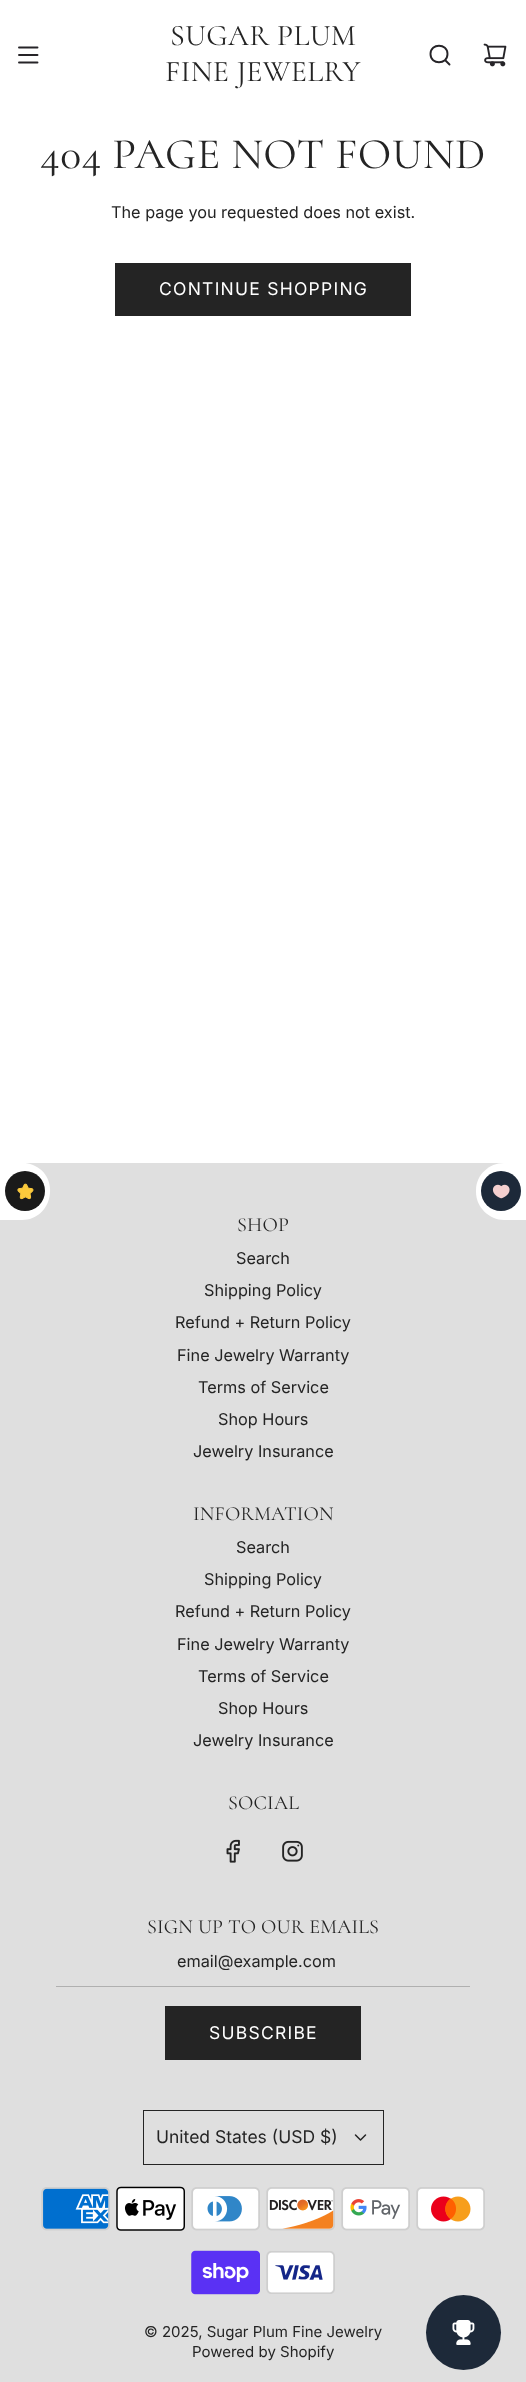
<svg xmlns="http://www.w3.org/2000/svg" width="526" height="2382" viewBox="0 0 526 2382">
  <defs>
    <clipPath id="clip1"><rect x="56" y="1950" width="402" height="20"/></clipPath>
  </defs>
  <rect width="100%" height="100%" fill="#ffffff"/>
  <path d="M19 47.5H37.5M19 55H37.5M19 62.5H37.5" fill="none" stroke="#262428" stroke-width="1.9" stroke-linecap="round" stroke-linejoin="round"/>
  <text x="170" y="45" font-family="Cormorant" font-size="30" letter-spacing="0.25" fill="#242424">SUGAR PLUM</text>
  <text x="165" y="81" font-family="Cormorant" font-size="30" letter-spacing="0.25" fill="#242424">FINE JEWELRY</text>
  <path d="M445 60L449.5 64.5M430.5 54C430.5 65 447.5 65 447.5 54C447.5 43 430.5 43 430.5 54Z" fill="none" stroke="#262428" stroke-width="1.9" stroke-linecap="round" stroke-linejoin="round"/>
  <image x="483" y="43" width="24" height="24" href="img1.png"/>
  <text x="40" y="168" font-family="Cormorant" font-size="43.75" letter-spacing="0.4" fill="#242424">404 PAGE NOT FOUND</text>
  <text x="111" y="218" font-family="Inter" font-size="16.25" fill="#242424">The page you requested does not exist.</text>
  <rect x="115" y="263" width="296" height="53" fill="#242424"/>
  <text x="159" y="295" font-family="Inter" font-size="17.5" letter-spacing="1.25" fill="#ffffff">CONTINUE SHOPPING</text>
  <rect x="0" y="1163" width="526" height="1219" fill="#dfdfdf"/>
  <path d="M0 1220V1163C10 1163 24 1161 33 1165C61 1176 53 1220 22 1220Z" fill="#ffffff"/>
  <circle cx="25" cy="1191" r="20" fill="#1a1a1a"/>
  <image x="17" y="1183" width="17" height="17" href="img2.png"/>
  <path d="M476 1192V1190C476 1175 489 1163 504 1163H526V1220H504C489 1220 476 1207 476 1192Z" fill="#ffffff"/>
  <circle cx="501" cy="1191" r="20" fill="#1d2939"/>
  <image x="492" y="1184" width="18" height="15" href="img3.png"/>
  <circle cx="463.5" cy="2332.5" r="37.5" fill="#1d2939"/>
  <image x="452" y="2320" width="23" height="25" href="img4.png"/>
  <text x="237" y="1231" font-family="Cormorant" font-size="20" letter-spacing="0.2" fill="#242424">SHOP</text>
  <text x="236" y="1264" font-family="Inter" font-size="16.25" fill="#242424">Search</text>
  <text x="204" y="1296" font-family="Inter" font-size="16.25" fill="#242424">Shipping Policy</text>
  <text x="175" y="1328" font-family="Inter" font-size="16.25" fill="#242424">Refund + Return Policy</text>
  <text x="177" y="1361" font-family="Inter" font-size="16.25" fill="#242424">Fine Jewelry Warranty</text>
  <text x="198" y="1393" font-family="Inter" font-size="16.25" fill="#242424">Terms of Service</text>
  <text x="218" y="1425" font-family="Inter" font-size="16.25" fill="#242424">Shop Hours</text>
  <text x="193" y="1457" font-family="Inter" font-size="16.25" fill="#242424">Jewelry Insurance</text>
  <text x="193" y="1520" font-family="Cormorant" font-size="20" letter-spacing="0.2" fill="#242424">INFORMATION</text>
  <text x="236" y="1553" font-family="Inter" font-size="16.25" fill="#242424">Search</text>
  <text x="204" y="1585" font-family="Inter" font-size="16.25" fill="#242424">Shipping Policy</text>
  <text x="175" y="1617" font-family="Inter" font-size="16.25" fill="#242424">Refund + Return Policy</text>
  <text x="177" y="1650" font-family="Inter" font-size="16.25" fill="#242424">Fine Jewelry Warranty</text>
  <text x="198" y="1682" font-family="Inter" font-size="16.25" fill="#242424">Terms of Service</text>
  <text x="218" y="1714" font-family="Inter" font-size="16.25" fill="#242424">Shop Hours</text>
  <text x="193" y="1746" font-family="Inter" font-size="16.25" fill="#242424">Jewelry Insurance</text>
  <text x="228" y="1809" font-family="Cormorant" font-size="20" letter-spacing="0.2" fill="#242424">SOCIAL</text>
  <image x="226" y="1839" width="14" height="24" href="img5.png"/>
  <image x="282" y="1840" width="21" height="22" href="img6.png"/>
  <text x="147" y="1933" font-family="Cormorant" font-size="20" letter-spacing="0.2" fill="#242424">SIGN UP TO OUR EMAILS</text>
  <rect x="56" y="1986" width="414" height="1" fill="#b0b0b0"/>
  <g clip-path="url(#clip1)">
    <text x="177" y="1967" font-family="Inter" font-size="16.25" fill="#242424">email@example.com</text>
  </g>
  <rect x="165" y="2006" width="196" height="54" fill="#242424"/>
  <text x="209" y="2039" font-family="Inter" font-size="17.5" letter-spacing="1.25" fill="#ffffff">SUBSCRIBE</text>
  <rect x="143.5" y="2110.5" width="240" height="54" fill="none" stroke="#242424"/>
  <text x="156" y="2143" font-family="Inter" font-size="17.5" fill="#242424">United States (USD $)</text>
  <path d="M355.5 2135L360.5 2140L365.5 2135" fill="none" stroke="#242424" stroke-width="1.5" stroke-linecap="round" stroke-linejoin="round"/>
  <image x="41" y="2187" width="69" height="44" href="img7.png"/>
  <image x="116" y="2186" width="69" height="45" href="img8.png"/>
  <image x="191" y="2187" width="69" height="44" href="img9.png"/>
  <image x="266" y="2187" width="69" height="44" href="img10.png"/>
  <image x="341" y="2187" width="69" height="44" href="img11.png"/>
  <image x="416" y="2187" width="69" height="44" href="img12.png"/>
  <image x="191" y="2250" width="69" height="45" href="img13.png"/>
  <image x="266" y="2251" width="69" height="43" href="img14.png"/>
  <text x="144" y="2337" font-family="Inter" font-size="15" fill="#242424">© 2025, Sugar Plum Fine Jewelry</text>
  <text x="192" y="2357" font-family="Inter" font-size="15" fill="#242424">Powered by Shopify</text>
</svg>
